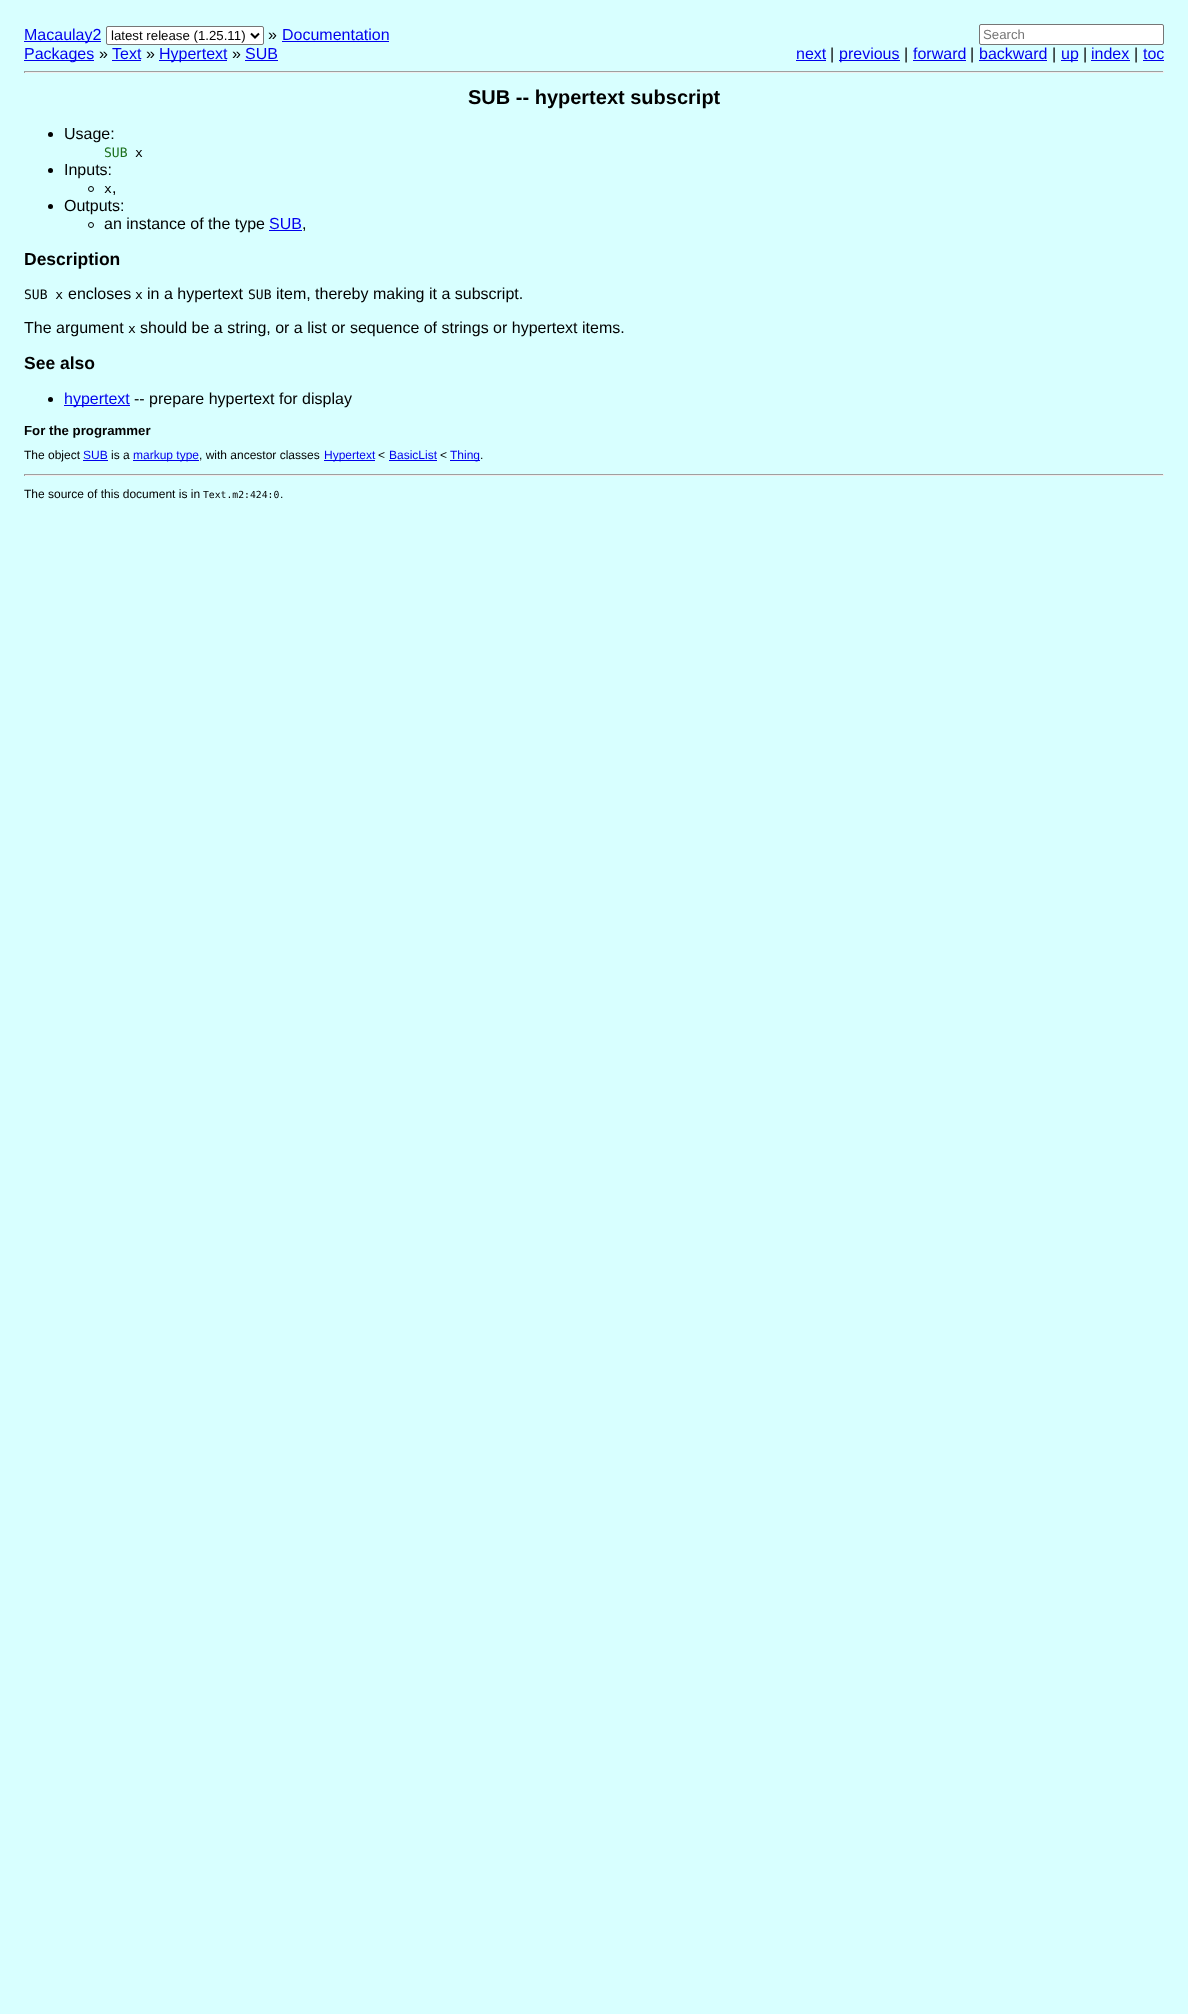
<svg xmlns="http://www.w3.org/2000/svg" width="1188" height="2014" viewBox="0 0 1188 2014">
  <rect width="100%" height="100%" fill="#d8ffff"/>
  <rect x="24" y="41" width="77" height="1" fill="#0000ee"/>
  <text x="24" y="40" font-family="Liberation Sans" font-size="16" fill="#0000ee">Macaulay2</text>
  <rect x="106.5" y="26.5" width="157" height="18" rx="1.5" fill="#ffffff" stroke="#767676"/>
  <path d="M251 33.5L255 37.5L259 33.5" fill="none" stroke="#000000" stroke-width="2"/>
  <text x="111" y="40" font-family="Liberation Sans" font-size="13.25" fill="#000000">latest release (1.25.11)</text>
  <text x="268" y="40" font-family="Liberation Sans" font-size="16" fill="#000000">»</text>
  <text x="282" y="40" font-family="Liberation Sans" font-size="16" fill="#0000ee">Documentation</text>
  <rect x="282" y="41" width="107" height="1" fill="#0000ee"/>
  <rect x="24" y="60" width="70" height="1" fill="#0000ee"/>
  <text x="24" y="59" font-family="Liberation Sans" font-size="16" fill="#0000ee">Packages</text>
  <text x="99" y="59" font-family="Liberation Sans" font-size="16" fill="#000000">»</text>
  <text x="112" y="59" font-family="Liberation Sans" font-size="16" fill="#0000ee">Text</text>
  <rect x="112" y="60" width="29" height="1" fill="#0000ee"/>
  <text x="146" y="59" font-family="Liberation Sans" font-size="16" fill="#000000">»</text>
  <rect x="159" y="60" width="68" height="1" fill="#0000ee"/>
  <text x="159" y="59" font-family="Liberation Sans" font-size="16" fill="#0000ee">Hypertext</text>
  <text x="232" y="59" font-family="Liberation Sans" font-size="16" fill="#000000">»</text>
  <text x="245" y="59" font-family="Liberation Sans" font-size="16" fill="#0000ee">SUB</text>
  <rect x="245" y="60" width="33" height="1" fill="#0000ee"/>
  <rect x="979.5" y="24.5" width="184" height="20" rx="1.5" fill="#ffffff" stroke="#767676"/>
  <text x="983" y="39" font-family="Liberation Sans" font-size="13.25" fill="#757575">Search</text>
  <text x="796" y="59" font-family="Liberation Sans" font-size="16" fill="#0000ee">next</text>
  <rect x="796" y="60" width="30" height="1" fill="#0000ee"/>
  <text x="830" y="59" font-family="Liberation Sans" font-size="16" fill="#000000">|</text>
  <rect x="839" y="60" width="61" height="1" fill="#0000ee"/>
  <text x="839" y="59" font-family="Liberation Sans" font-size="16" fill="#0000ee">previous</text>
  <text x="904" y="59" font-family="Liberation Sans" font-size="16" fill="#000000">|</text>
  <text x="913" y="59" font-family="Liberation Sans" font-size="16" fill="#0000ee">forward</text>
  <rect x="913" y="60" width="53" height="1" fill="#0000ee"/>
  <text x="970" y="59" font-family="Liberation Sans" font-size="16" fill="#000000">|</text>
  <text x="979" y="59" font-family="Liberation Sans" font-size="16" fill="#0000ee">backward</text>
  <rect x="979" y="60" width="68" height="1" fill="#0000ee"/>
  <text x="1052" y="59" font-family="Liberation Sans" font-size="16" fill="#000000">|</text>
  <rect x="1061" y="60" width="17" height="1" fill="#0000ee"/>
  <text x="1061" y="59" font-family="Liberation Sans" font-size="16" fill="#0000ee">up</text>
  <text x="1083" y="59" font-family="Liberation Sans" font-size="16" fill="#000000">|</text>
  <text x="1091" y="59" font-family="Liberation Sans" font-size="16" fill="#0000ee">index</text>
  <rect x="1091" y="60" width="39" height="1" fill="#0000ee"/>
  <text x="1134" y="59" font-family="Liberation Sans" font-size="16" fill="#000000">|</text>
  <text x="1143" y="59" font-family="Liberation Sans" font-size="16" fill="#0000ee">toc</text>
  <rect x="1143" y="60" width="21" height="1" fill="#0000ee"/>
  <rect x="24" y="71" width="1140" height="1" fill="#9f9f9f"/>
  <rect x="1163" y="71" width="1" height="2" fill="#eeeeee"/>
  <rect x="24" y="72" width="1140" height="1" fill="#eeeeee"/>
  <rect x="24" y="71" width="1" height="2" fill="#9f9f9f"/>
  <text x="468" y="104" font-family="Liberation Sans" font-size="20" font-weight="bold" fill="#000000">SUB -- hypertext subscript</text>
  <circle cx="50.5" cy="134.5" r="2.5" fill="#000000"/>
  <text x="64" y="139" font-family="Liberation Sans" font-size="16" fill="#000000">Usage:</text>
  <text x="104" y="157" font-family="DejaVu Sans Mono" font-size="13" fill="#1c701c">SUB</text>
  <text x="135" y="157" font-family="DejaVu Sans Mono" font-size="13" fill="#000000">x</text>
  <circle cx="50.5" cy="170.5" r="2.5" fill="#000000"/>
  <text x="64" y="175" font-family="Liberation Sans" font-size="16" fill="#000000">Inputs:</text>
  <circle cx="91" cy="189" r="2.5" fill="none" stroke="#000000"/>
  <text x="104" y="193" font-family="DejaVu Sans Mono" font-size="13" fill="#000000">x</text>
  <text x="112" y="193" font-family="Liberation Sans" font-size="16" fill="#000000">,</text>
  <circle cx="50.5" cy="206.5" r="2.5" fill="#000000"/>
  <text x="64" y="211" font-family="Liberation Sans" font-size="16" fill="#000000">Outputs:</text>
  <circle cx="91" cy="225" r="2.5" fill="none" stroke="#000000"/>
  <text x="104" y="229" font-family="Liberation Sans" font-size="16" fill="#000000">an instance of the type</text>
  <text x="269" y="229" font-family="Liberation Sans" font-size="16" fill="#0000ee">SUB</text>
  <text x="302" y="229" font-family="Liberation Sans" font-size="16" fill="#000000">,</text>
  <rect x="269" y="230" width="33" height="1" fill="#0000ee"/>
  <text x="24" y="265" font-family="Liberation Sans" font-size="17.5" font-weight="bold" fill="#000000">Description</text>
  <text x="24" y="299" font-family="DejaVu Sans Mono" font-size="13" fill="#000000">SUB x</text>
  <text x="68" y="299" font-family="Liberation Sans" font-size="16" fill="#000000">encloses</text>
  <text x="135" y="299" font-family="DejaVu Sans Mono" font-size="13" fill="#000000">x</text>
  <text x="147" y="299" font-family="Liberation Sans" font-size="16" fill="#000000">in a hypertext</text>
  <text x="248" y="299" font-family="DejaVu Sans Mono" font-size="13" fill="#000000">SUB</text>
  <text x="276" y="299" font-family="Liberation Sans" font-size="16" fill="#000000">item, thereby making it a subscript.</text>
  <text x="24" y="333" font-family="Liberation Sans" font-size="16" fill="#000000">The argument</text>
  <text x="128" y="333" font-family="DejaVu Sans Mono" font-size="13" fill="#000000">x</text>
  <text x="140" y="333" font-family="Liberation Sans" font-size="16" fill="#000000">should be a string, or a list or sequence of strings or hypertext items.</text>
  <text x="24" y="369" font-family="Liberation Sans" font-size="17.5" font-weight="bold" fill="#000000">See also</text>
  <circle cx="50.5" cy="399.5" r="2.5" fill="#000000"/>
  <rect x="64" y="405" width="66" height="1" fill="#0000ee"/>
  <text x="64" y="404" font-family="Liberation Sans" font-size="16" fill="#0000ee">hypertext</text>
  <text x="134" y="404" font-family="Liberation Sans" font-size="16" fill="#000000">-- prepare hypertext for display</text>
  <text x="24" y="435" font-family="Liberation Sans" font-size="13.25" font-weight="bold" fill="#000000">For the programmer</text>
  <text x="24" y="459" font-family="Liberation Sans" font-size="12" fill="#000000">The object</text>
  <text x="83" y="459" font-family="Liberation Sans" font-size="12" fill="#0000ee">SUB</text>
  <rect x="83" y="460" width="25" height="1" fill="#0000ee"/>
  <text x="111" y="459" font-family="Liberation Sans" font-size="12" fill="#000000">is a</text>
  <rect x="133" y="460" width="66" height="1" fill="#0000ee"/>
  <text x="133" y="459" font-family="Liberation Sans" font-size="12" fill="#0000ee">markup type</text>
  <text x="199" y="459" font-family="Liberation Sans" font-size="12" fill="#000000">, with ancestor classes</text>
  <rect x="324" y="460" width="51" height="1" fill="#0000ee"/>
  <text x="324" y="459" font-family="Liberation Sans" font-size="12" fill="#0000ee">Hypertext</text>
  <text x="378" y="459" font-family="Liberation Sans" font-size="12" fill="#000000">&lt;</text>
  <text x="389" y="459" font-family="Liberation Sans" font-size="12" fill="#0000ee">BasicList</text>
  <rect x="389" y="460" width="48" height="1" fill="#0000ee"/>
  <text x="440" y="459" font-family="Liberation Sans" font-size="12" fill="#000000">&lt;</text>
  <rect x="450" y="460" width="30" height="1" fill="#0000ee"/>
  <text x="450" y="459" font-family="Liberation Sans" font-size="12" fill="#0000ee">Thing</text>
  <text x="480" y="459" font-family="Liberation Sans" font-size="12" fill="#000000">.</text>
  <rect x="24" y="474" width="1140" height="1" fill="#9f9f9f"/>
  <rect x="1163" y="474" width="1" height="2" fill="#eeeeee"/>
  <rect x="24" y="475" width="1140" height="1" fill="#eeeeee"/>
  <rect x="24" y="474" width="1" height="2" fill="#9f9f9f"/>
  <text x="24" y="498" font-family="Liberation Sans" font-size="12" fill="#000000">The source of this document is in</text>
  <text x="203" y="498" font-family="DejaVu Sans Mono" font-size="9.75" fill="#000000">Text.m2:424:0</text>
  <text x="280" y="498" font-family="Liberation Sans" font-size="12" fill="#000000">.</text>
</svg>
